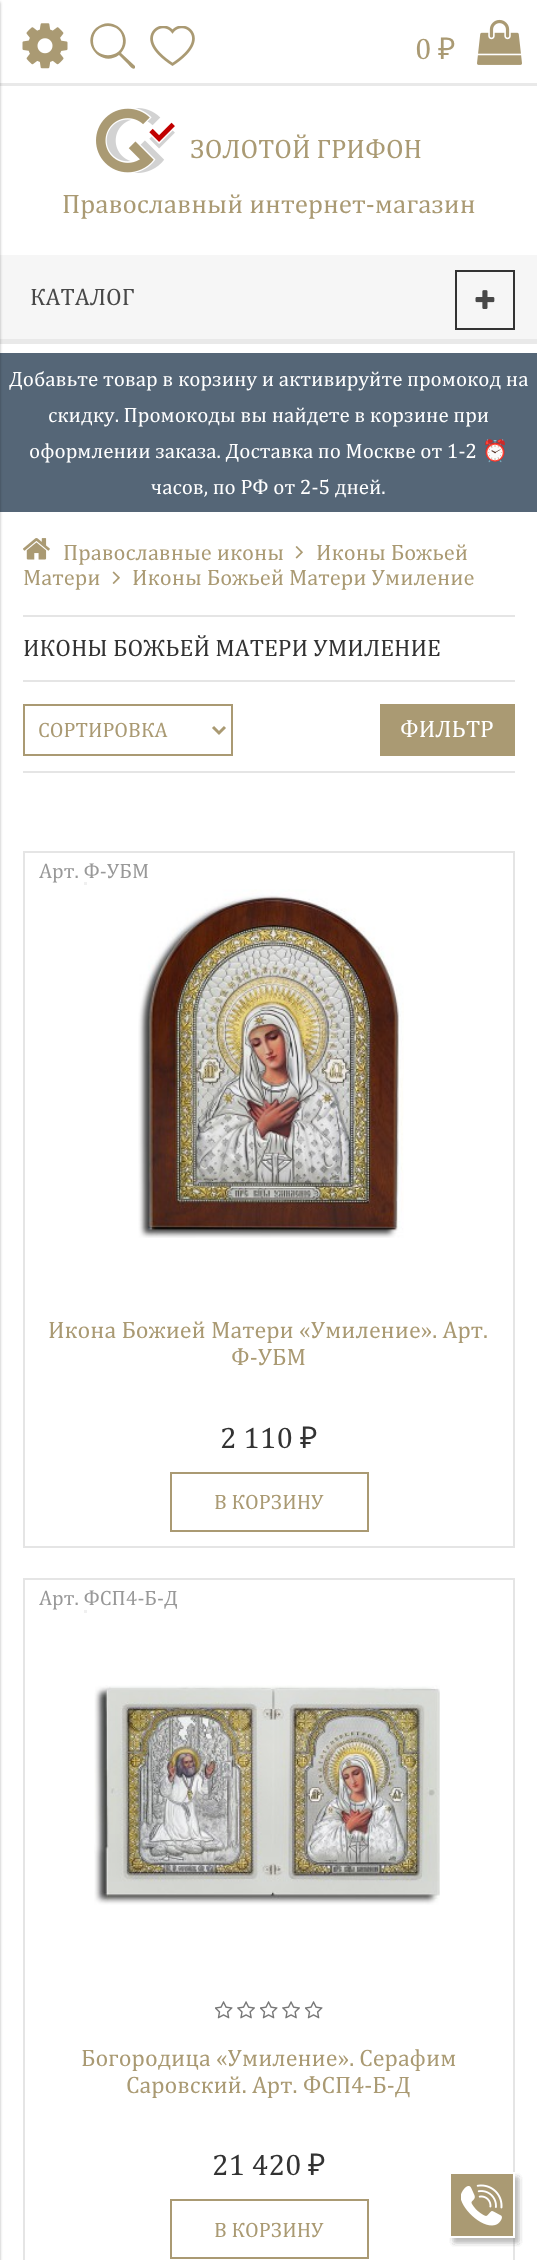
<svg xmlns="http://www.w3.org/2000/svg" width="537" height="2260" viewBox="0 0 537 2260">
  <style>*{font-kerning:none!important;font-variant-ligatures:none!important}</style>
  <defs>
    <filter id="blur1" x="-50%" y="-200%" width="200%" height="500%"><feGaussianBlur stdDeviation="1.5"/></filter>
    <filter id="blur2" x="-50%" y="-200%" width="200%" height="500%"><feGaussianBlur stdDeviation="2"/></filter>
  </defs>
  <rect width="100%" height="100%" fill="#ffffff"/>
  <rect x="0" y="83" width="537" height="3" fill="#e9e9e9"/>
  <rect x="0" y="255" width="537" height="84" fill="#f6f6f6"/>
  <rect x="0" y="339" width="537" height="5" fill="#e9e9e9"/>
  <rect x="0" y="353" width="537" height="159" fill="#556677"/>
  <rect x="-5" y="2" width="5" height="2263" fill="#000000" fill-opacity="0.3" filter="url(#blur1)"/>
  <image x="22" y="23" width="46" height="46" href="img1.png"/>
  <image x="150" y="26" width="45" height="40" href="img2.png"/>
  <path d="M121 53C136 36 113 13 96 28C80 43 101 68 119 55L128 64C128 64 133 71 135 68C135 67 135 67 135 66ZM93 41C93 21 123 21 123 41C123 60 93 60 93 41Z" fill="#aa9a73"/>
  <text x="415" y="59" font-family="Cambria" font-size="30" fill="#aa9a73">0</text>
  <text x="438" y="59" font-family="Noto Sans" font-size="30" fill="#aa9a73">₽</text>
  <image x="477" y="19" width="45" height="46" href="img3.png"/>
  <image x="96" y="108" width="79" height="65" href="img4.png"/>
  <text x="190" y="158" font-family="Cambria" font-size="27" fill="#aa9a73">ЗОЛОТОЙ ГРИФОН</text>
  <text x="62" y="213" font-family="Cambria" font-size="27" fill="#aa9a73">Православный интернет-магазин</text>
  <text x="30" y="305" font-family="Cambria" font-size="24" fill="#484848">КАТАЛОГ</text>
  <rect x="456" y="271" width="58" height="58" fill="none" stroke="#333333" stroke-width="2"/>
  <image x="475" y="290" width="20" height="19" href="img5.png"/>
  <text x="9" y="386" font-family="Cambria" font-size="21" fill="#ffffff">Добавьте товар в корзину и активируйте промокод на</text>
  <text x="48" y="422" font-family="Cambria" font-size="21" fill="#ffffff">скидку. Промокоды вы найдете в корзине при</text>
  <text x="29" y="458" font-family="Cambria" font-size="21" fill="#ffffff">оформлении заказа. Доставка по Москве от 1-2</text>
  <text x="482" y="458" font-family="Noto Color Emoji" font-size="21" fill="#ffffff">⏰</text>
  <text x="151" y="494" font-family="Cambria" font-size="21" fill="#ffffff">часов, по РФ от 2-5 дней.</text>
  <image x="23" y="538" width="27" height="22" href="img6.png"/>
  <text x="63" y="560" font-family="Cambria" font-size="22.5" fill="#aa9a73">Православные иконы</text>
  <image x="295" y="546" width="8" height="13" href="img7.png"/>
  <text x="316" y="560" font-family="Cambria" font-size="22.5" fill="#aa9a73">Иконы Божьей</text>
  <text x="23" y="585" font-family="Cambria" font-size="22.5" fill="#aa9a73">Матери</text>
  <image x="112" y="571" width="8" height="13" href="img8.png"/>
  <text x="132" y="585" font-family="Cambria" font-size="22.5" fill="#aa9a73">Иконы Божьей Матери Умиление</text>
  <rect x="23" y="615" width="492" height="2" fill="#e5e5e5"/>
  <text x="23" y="656" font-family="Cambria" font-size="24" fill="#333333">ИКОНЫ БОЖЬЕЙ МАТЕРИ УМИЛЕНИЕ</text>
  <rect x="23" y="680" width="492" height="2" fill="#e5e5e5"/>
  <rect x="23" y="771" width="492" height="2" fill="#e5e5e5"/>
  <rect x="24" y="705" width="208" height="50" fill="none" stroke="#aa9a73" stroke-width="2"/>
  <path d="M213 727L219 733L225 727" fill="none" stroke="#aa9a73" stroke-width="3"/>
  <text x="38" y="737" font-family="Cambria" font-size="21" fill="#aa9a73">СОРТИРОВКА</text>
  <rect x="380" y="704" width="135" height="52" fill="#aa9a73"/>
  <text x="400" y="737" font-family="Cambria" font-size="24" fill="#ffffff">ФИЛЬТР</text>
  <rect x="24" y="852" width="490" height="695" fill="none" stroke="#e5e5e5" stroke-width="2"/>
  <rect x="84" y="882" width="3" height="3" fill="#f0f0f0"/>
  <text x="39" y="878" font-family="Cambria" font-size="21" fill="#999999">Арт. Ф-УБМ</text>
  <image x="138" y="889" width="266" height="349" href="img9.png"/>
  <text x="48" y="1338" font-family="Cambria" font-size="24" fill="#aa9a73">Икона Божией Матери «Умиление». Арт.</text>
  <text x="231" y="1365" font-family="Cambria" font-size="24" fill="#aa9a73">Ф-УБМ</text>
  <text x="220" y="1448" font-family="Cambria" font-size="30" fill="#333333">2 110</text>
  <text x="300" y="1448" font-family="Noto Sans" font-size="30" fill="#333333">₽</text>
  <rect x="171" y="1473" width="197" height="58" fill="none" stroke="#aa9a73" stroke-width="2"/>
  <text x="214" y="1509" font-family="Cambria" font-size="21" fill="#aa9a73">В КОРЗИНУ</text>
  <rect x="24" y="1579" width="490" height="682" fill="none" stroke="#e5e5e5" stroke-width="2"/>
  <text x="39" y="1605" font-family="Cambria" font-size="21" fill="#999999">Арт. ФСП4-Б-Д</text>
  <rect x="84" y="1610" width="3" height="3" fill="#f0f0f0"/>
  <image x="94" y="1685" width="346" height="220" href="img10.png"/>
  <image x="215" y="2001" width="18" height="18" href="img11.png"/>
  <image x="237" y="2001" width="18" height="18" href="img12.png"/>
  <image x="260" y="2001" width="18" height="18" href="img11.png"/>
  <image x="282" y="2001" width="18" height="18" href="img12.png"/>
  <image x="305" y="2001" width="18" height="18" href="img11.png"/>
  <text x="81" y="2066" font-family="Cambria" font-size="24" fill="#aa9a73">Богородица «Умиление». Серафим</text>
  <text x="126" y="2093" font-family="Cambria" font-size="24" fill="#aa9a73">Саровский. Арт. ФСП4-Б-Д</text>
  <text x="212" y="2175" font-family="Cambria" font-size="30" fill="#333333">21 420</text>
  <text x="308" y="2175" font-family="Noto Sans" font-size="30" fill="#333333">₽</text>
  <rect x="171" y="2200" width="197" height="58" fill="none" stroke="#aa9a73" stroke-width="2"/>
  <text x="214" y="2237" font-family="Cambria" font-size="21" fill="#aa9a73">В КОРЗИНУ</text>
  <rect x="453" y="2177" width="66" height="66" fill="#646464" fill-opacity="0.1" filter="url(#blur2)"/>
  <rect x="453" y="2177" width="66" height="66" fill="#646464" fill-opacity="0.1" filter="url(#blur2)"/>
  <rect x="453" y="2177" width="66" height="66" fill="#646464" fill-opacity="0.1" filter="url(#blur2)"/>
  <rect x="453" y="2177" width="66" height="66" fill="#646464" fill-opacity="0.1" filter="url(#blur2)"/>
  <rect x="453" y="2177" width="66" height="66" fill="#646464" fill-opacity="0.1" filter="url(#blur2)"/>
  <rect x="451" y="2174" width="62" height="62" fill="#aa9a73"/>
  <image x="461" y="2184" width="42" height="42" href="img13.png"/>
  <rect x="450" y="2173" width="64" height="64" fill="none" stroke="#ffffff" stroke-width="2"/>
</svg>
